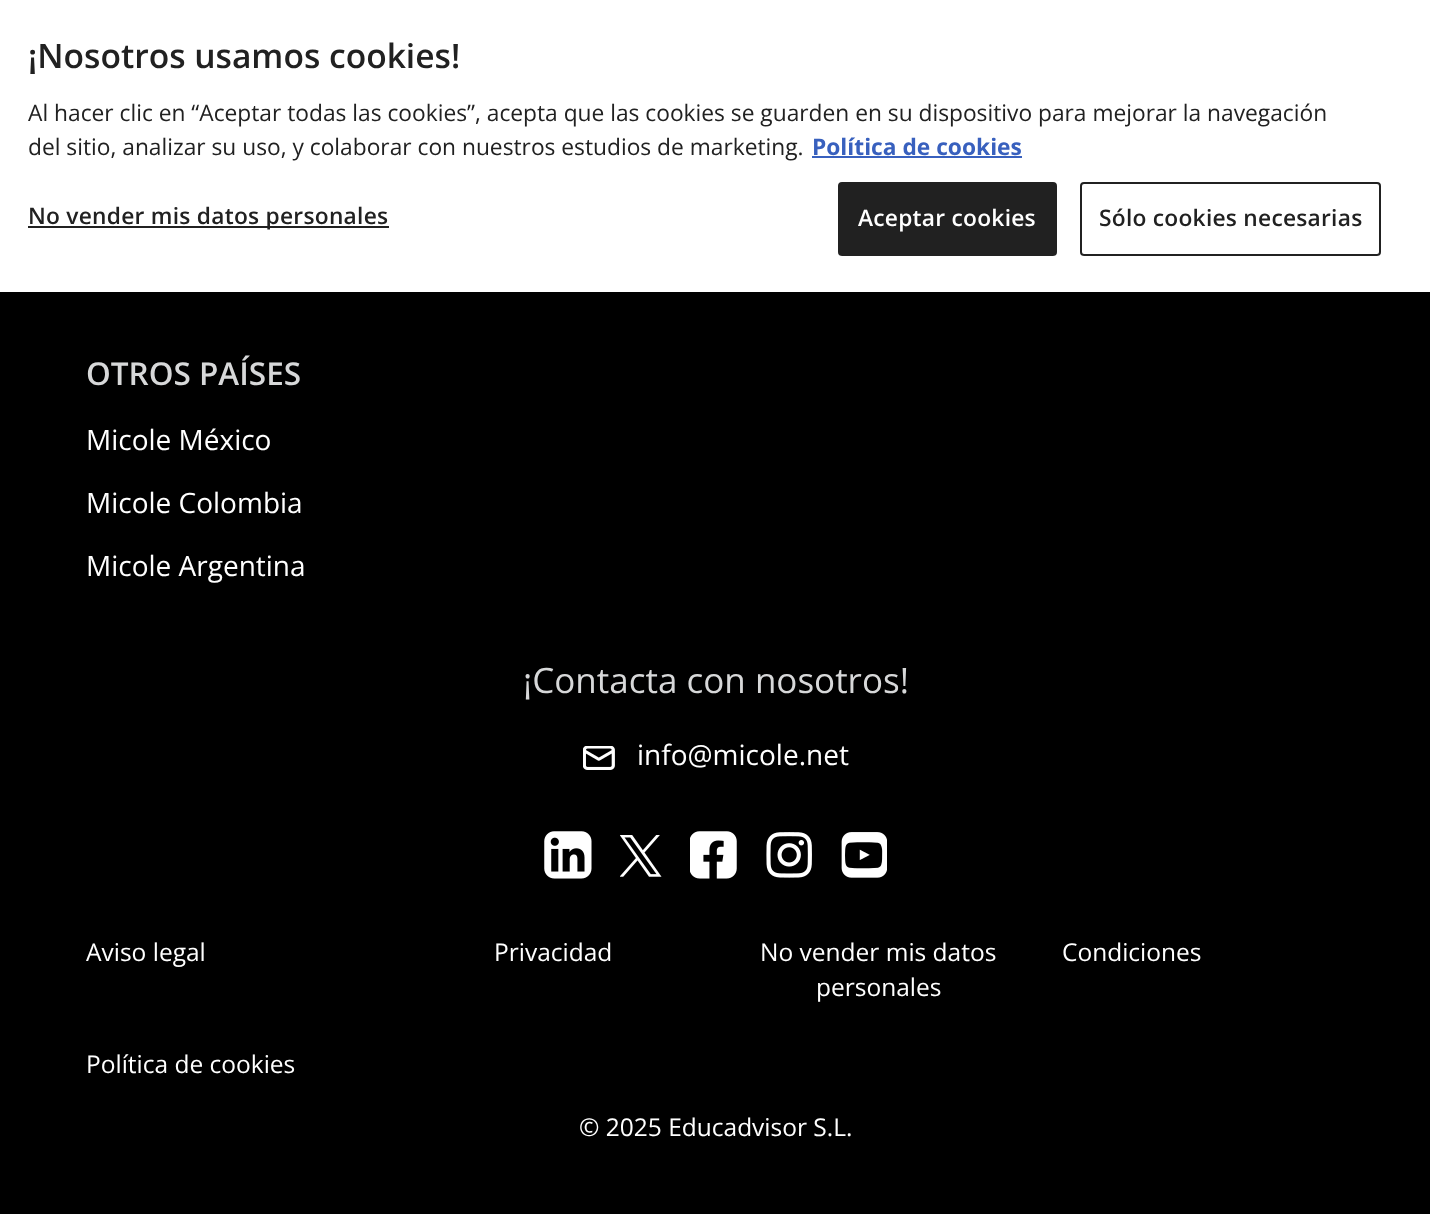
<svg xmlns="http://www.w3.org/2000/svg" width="1430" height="1214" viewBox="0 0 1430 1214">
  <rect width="100%" height="100%" fill="#000000"/>
  <rect x="0" y="0" width="1430" height="292" fill="#ffffff"/>
  <text x="28" y="68" font-family="Open Sans" font-size="33.6" font-weight="600" fill="#212121">¡Nosotros usamos cookies!</text>
  <text x="28" y="121" font-family="Open Sans" font-size="22.75" fill="#212121">Al hacer clic en “Aceptar todas las cookies”, acepta que las cookies se guarden en su dispositivo para mejorar la navegación</text>
  <text x="28" y="155" font-family="Open Sans" font-size="22.75" fill="#212121">del sitio, analizar su uso, y colaborar con nuestros estudios de marketing.</text>
  <text x="812" y="155" font-family="Open Sans" font-size="22.75" font-weight="bold" fill="#3860be">Política de cookies</text>
  <rect x="812" y="156" width="210" height="2" fill="#3860be"/>
  <rect x="28" y="226" width="361" height="2" fill="#212121"/>
  <text x="28" y="224" font-family="Open Sans" font-size="22.75" font-weight="600" letter-spacing="0.25" fill="#212121">No vender mis datos personales</text>
  <rect x="839" y="183" width="217" height="72" rx="3" fill="#212121" stroke="#212121" stroke-width="2"/>
  <text x="858" y="226" font-family="Open Sans" font-size="22.75" font-weight="600" letter-spacing="0.25" fill="#ffffff">Aceptar cookies</text>
  <rect x="1081" y="183" width="299" height="72" rx="3" fill="none" stroke="#212121" stroke-width="2"/>
  <text x="1099" y="226" font-family="Open Sans" font-size="22.75" font-weight="600" letter-spacing="0.25" fill="#212121">Sólo cookies necesarias</text>
  <text x="86" y="385" font-family="Open Sans" font-size="31.5" font-weight="600" fill="#d7d8d9">OTROS PAÍSES</text>
  <text x="86" y="450" font-family="Open Sans" font-size="28" fill="#ffffff">Micole México</text>
  <text x="86" y="513" font-family="Open Sans" font-size="28" fill="#ffffff">Micole Colombia</text>
  <text x="86" y="576" font-family="Open Sans" font-size="28" fill="#ffffff">Micole Argentina</text>
  <text x="523" y="693" font-family="Open Sans" font-size="35" fill="#d7d8d9">¡Contacta con nosotros!</text>
  <image x="583" y="746" width="32" height="24" href="img1.png"/>
  <text x="637" y="765" font-family="Open Sans" font-size="28" fill="#ffffff">info@micole.net</text>
  <image x="544" y="831" width="48" height="48" href="img2.png"/>
  <image x="620" y="835" width="42" height="42" href="img3.png"/>
  <image x="690" y="831" width="47" height="48" href="img4.png"/>
  <image x="766" y="832" width="46" height="46" href="img5.png"/>
  <image x="841" y="832" width="46" height="46" href="img6.png"/>
  <text x="86" y="961" font-family="Open Sans" font-size="24.5" fill="#ffffff">Aviso legal</text>
  <text x="494" y="961" font-family="Open Sans" font-size="24.5" fill="#ffffff">Privacidad</text>
  <text x="760" y="961" font-family="Open Sans" font-size="24.5" fill="#ffffff">No vender mis datos</text>
  <text x="816" y="996" font-family="Open Sans" font-size="24.5" fill="#ffffff">personales</text>
  <text x="1062" y="961" font-family="Open Sans" font-size="24.5" fill="#ffffff">Condiciones</text>
  <text x="86" y="1073" font-family="Open Sans" font-size="24.5" fill="#ffffff">Política de cookies</text>
  <text x="579" y="1136" font-family="Open Sans" font-size="24.5" fill="#ffffff">© 2025 Educadvisor S.L.</text>
</svg>
